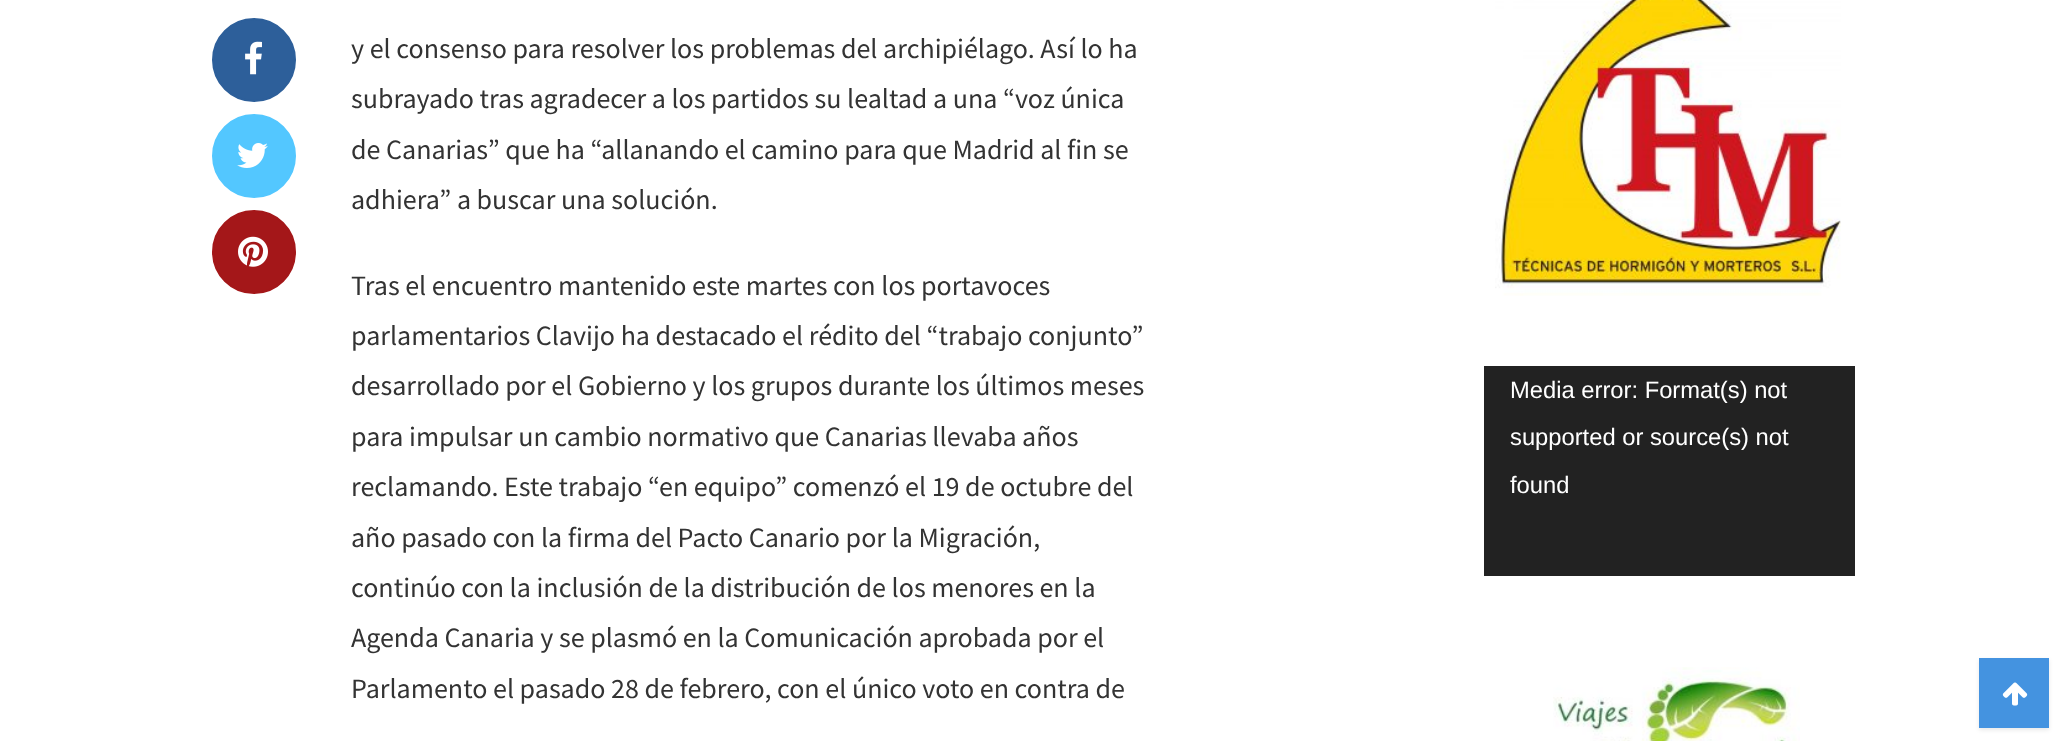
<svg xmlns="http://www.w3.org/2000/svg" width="2066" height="741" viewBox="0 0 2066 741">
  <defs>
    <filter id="blur1" x="-50%" y="-200%" width="200%" height="500%"><feGaussianBlur stdDeviation="2"/></filter>
  </defs>
  <rect width="100%" height="100%" fill="#ffffff"/>
  <circle cx="254" cy="60" r="41" fill="#2d5f9a" stroke="#2d5f9a" stroke-width="2"/>
  <image x="245" y="41" width="17" height="34" href="img1.png"/>
  <circle cx="254" cy="156" r="41" fill="#53c7ff" stroke="#53c7ff" stroke-width="2"/>
  <image x="237" y="143" width="31" height="25" href="img2.png"/>
  <circle cx="254" cy="252" r="41" fill="#a41719" stroke="#a41719" stroke-width="2"/>
  <image x="238" y="236" width="30" height="31" href="img3.png"/>
  <text x="351" y="58" font-family="Source Sans Pro" font-size="28" fill="#333333">y el consenso para resolver los problemas del archipiélago. Así lo ha</text>
  <text x="351" y="108" font-family="Source Sans Pro" font-size="28" fill="#333333">subrayado tras agradecer a los partidos su lealtad a una “voz única</text>
  <text x="351" y="159" font-family="Source Sans Pro" font-size="28" fill="#333333">de Canarias” que ha “allanando el camino para que Madrid al fin se</text>
  <text x="351" y="209" font-family="Source Sans Pro" font-size="28" fill="#333333">adhiera” a buscar una solución.</text>
  <text x="351" y="295" font-family="Source Sans Pro" font-size="28" fill="#333333">Tras el encuentro mantenido este martes con los portavoces</text>
  <text x="351" y="345" font-family="Source Sans Pro" font-size="28" fill="#333333">parlamentarios Clavijo ha destacado el rédito del “trabajo conjunto”</text>
  <text x="351" y="395" font-family="Source Sans Pro" font-size="28" fill="#333333">desarrollado por el Gobierno y los grupos durante los últimos meses</text>
  <text x="351" y="446" font-family="Source Sans Pro" font-size="28" fill="#333333">para impulsar un cambio normativo que Canarias llevaba años</text>
  <text x="351" y="496" font-family="Source Sans Pro" font-size="28" fill="#333333">reclamando. Este trabajo “en equipo” comenzó el 19 de octubre del</text>
  <text x="351" y="547" font-family="Source Sans Pro" font-size="28" fill="#333333">año pasado con la firma del Pacto Canario por la Migración,</text>
  <text x="351" y="597" font-family="Source Sans Pro" font-size="28" fill="#333333">continúo con la inclusión de la distribución de los menores en la</text>
  <text x="351" y="647" font-family="Source Sans Pro" font-size="28" fill="#333333">Agenda Canaria y se plasmó en la Comunicación aprobada por el</text>
  <text x="351" y="698" font-family="Source Sans Pro" font-size="28" fill="#333333">Parlamento el pasado 28 de febrero, con el único voto en contra de</text>
  <image x="1495" y="0" width="346" height="296" href="img4.png"/>
  <rect x="1484" y="366" width="371" height="210" fill="#222222"/>
  <text x="1510" y="398" font-family="Liberation Sans" font-size="23.75" fill="#ffffff">Media error: Format(s) not</text>
  <text x="1510" y="445" font-family="Liberation Sans" font-size="23.75" fill="#ffffff">supported or source(s) not</text>
  <text x="1510" y="493" font-family="Liberation Sans" font-size="23.75" fill="#ffffff">found</text>
  <image x="1553" y="667" width="247" height="74" href="img5.png"/>
  <rect x="1979" y="660" width="70" height="70" fill="#000000" fill-opacity="0.09" filter="url(#blur1)"/>
  <rect x="1979" y="658" width="70" height="70" fill="#4493e0"/>
  <image x="2002" y="682" width="26" height="24" href="img6.png"/>
</svg>
